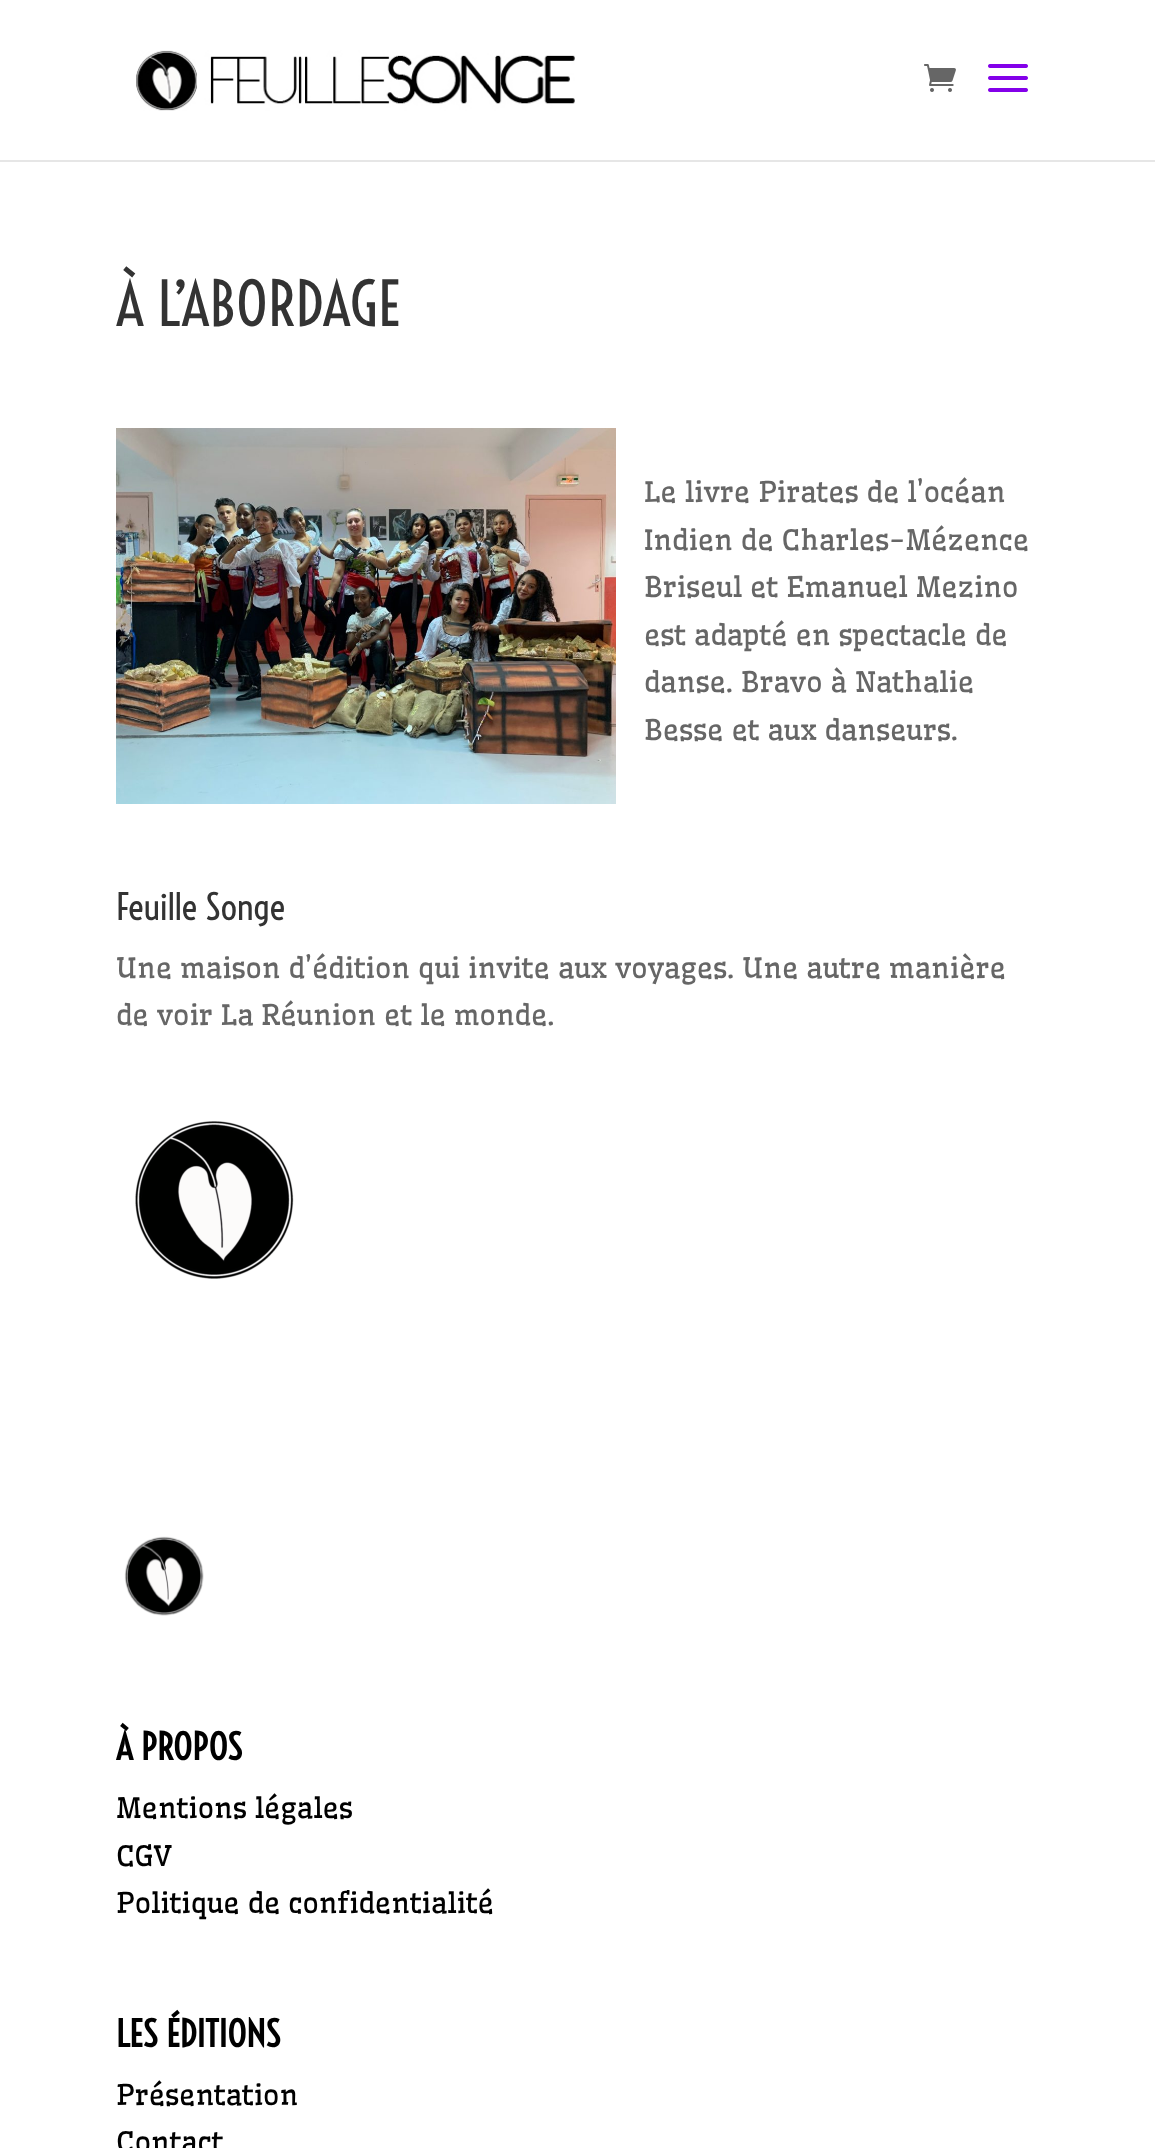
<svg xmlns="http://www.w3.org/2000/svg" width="1155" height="2148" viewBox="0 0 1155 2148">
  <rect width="100%" height="100%" fill="#ffffff"/>
  <rect x="0" y="160" width="1155" height="2" fill="#e6e6e6"/>
  <image x="136" y="50" width="439" height="61" href="img1.png"/>
  <image x="924" y="64" width="32" height="28" href="img2.png"/>
  <image x="988" y="64" width="40" height="28" href="img3.png"/>
  <text x="116" y="326" font-family="Voltaire" font-size="60" fill="#333333">À L’ABORDAGE</text>
  <image x="116" y="428" width="500" height="376" href="img4.png"/>
  <text x="644" y="502" font-family="Wellfleet" font-size="28" fill="#666666">Le livre Pirates de l’océan</text>
  <text x="644" y="550" font-family="Wellfleet" font-size="28" fill="#666666">Indien de Charles-Mézence</text>
  <text x="644" y="597" font-family="Wellfleet" font-size="28" fill="#666666">Briseul et Emanuel Mezino</text>
  <text x="644" y="645" font-family="Wellfleet" font-size="28" fill="#666666">est adapté en spectacle de</text>
  <text x="644" y="692" font-family="Wellfleet" font-size="28" fill="#666666">danse. Bravo à Nathalie</text>
  <text x="644" y="740" font-family="Wellfleet" font-size="28" fill="#666666">Besse et aux danseurs.</text>
  <text x="116" y="920" font-family="Voltaire" font-size="36" fill="#333333">Feuille Songe</text>
  <text x="116" y="978" font-family="Wellfleet" font-size="28" fill="#666666">Une maison d’édition qui invite aux voyages. Une autre manière</text>
  <text x="116" y="1025" font-family="Wellfleet" font-size="28" fill="#666666">de voir La Réunion et le monde.</text>
  <image x="135" y="1121" width="159" height="158" href="img5.png"/>
  <image x="124" y="1536" width="80" height="80" href="img6.png"/>
  <text x="116" y="1760" font-family="Voltaire" font-size="36" font-weight="bold" fill="#000000">À PROPOS</text>
  <text x="116" y="1818" font-family="Wellfleet" font-size="28" fill="#000000">Mentions légales</text>
  <text x="116" y="1866" font-family="Wellfleet" font-size="28" fill="#000000">CGV</text>
  <text x="116" y="1913" font-family="Wellfleet" font-size="28" fill="#000000">Politique de confidentialité</text>
  <text x="116" y="2047" font-family="Voltaire" font-size="36" font-weight="bold" fill="#000000">LES ÉDITIONS</text>
  <text x="116" y="2105" font-family="Wellfleet" font-size="28" fill="#000000">Présentation</text>
  <text x="116" y="2152" font-family="Wellfleet" font-size="28" fill="#000000">Contact</text>
</svg>
